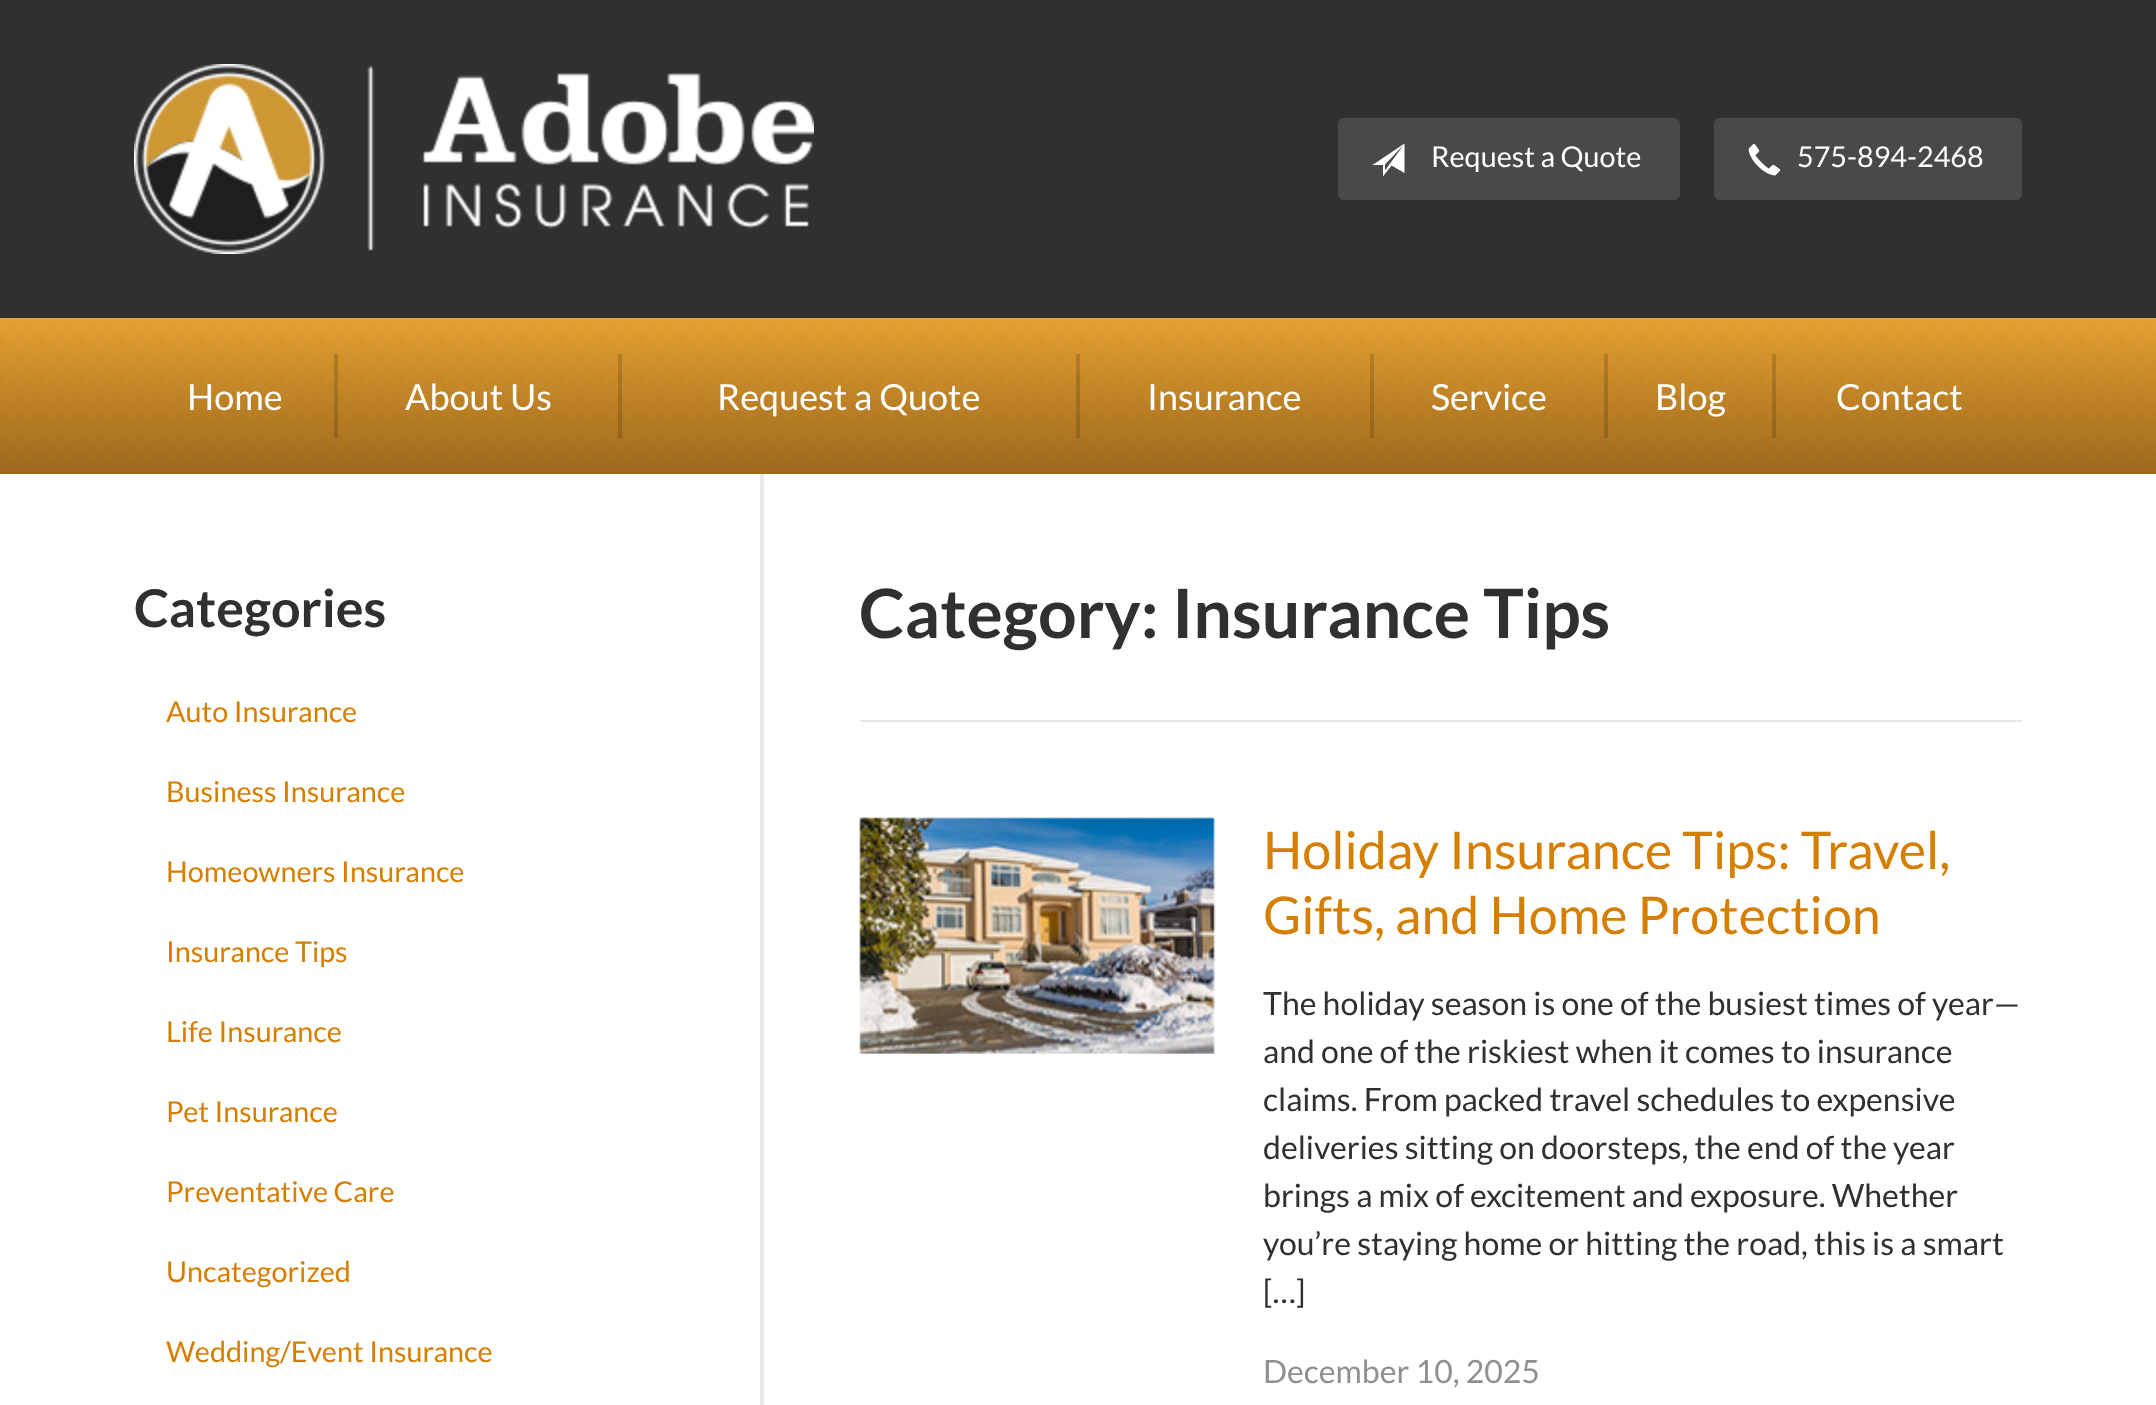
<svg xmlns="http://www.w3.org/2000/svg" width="2156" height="1405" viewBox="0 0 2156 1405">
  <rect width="100%" height="100%" fill="#303030"/>
  <image x="134" y="64" width="680" height="190" href="img1.png"/>
  <rect x="1338" y="118" width="342" height="82" rx="6" fill="#494949"/>
  <path d="M1372.5 165H1383V176.5L1391.5 165.5L1404.5 173V143.5ZM1385 170.5V164.5L1403.5 145Z" fill="#ffffff"/>
  <text x="1431" y="167" font-family="Lato" font-size="28.75" fill="#ffffff">Request a Quote</text>
  <rect x="1714" y="118" width="308" height="82" rx="6" fill="#494949"/>
  <image x="1748" y="143" width="33" height="33" href="img2.png"/>
  <text x="1797" y="167" font-family="Lato" font-size="28.75" fill="#ffffff">575-894-2468</text>
  <image x="0" y="318" width="2156" height="156" href="img3.png"/>
  <rect x="334" y="354" width="4" height="84" fill="#000000" fill-opacity="0.15"/>
  <text x="187" y="410" font-family="Lato" font-size="36" fill="#ffffff">Home</text>
  <rect x="618" y="354" width="4" height="84" fill="#000000" fill-opacity="0.15"/>
  <text x="405" y="410" font-family="Lato" font-size="36" fill="#ffffff">About Us</text>
  <rect x="1076" y="354" width="4" height="84" fill="#000000" fill-opacity="0.15"/>
  <text x="717" y="410" font-family="Lato" font-size="36" fill="#ffffff">Request a Quote</text>
  <rect x="1370" y="354" width="4" height="84" fill="#000000" fill-opacity="0.15"/>
  <text x="1147" y="410" font-family="Lato" font-size="36" fill="#ffffff">Insurance</text>
  <rect x="1604" y="354" width="4" height="84" fill="#000000" fill-opacity="0.15"/>
  <text x="1431" y="410" font-family="Lato" font-size="36" fill="#ffffff">Service</text>
  <rect x="1772" y="354" width="4" height="84" fill="#000000" fill-opacity="0.15"/>
  <text x="1655" y="410" font-family="Lato" font-size="36" fill="#ffffff">Blog</text>
  <text x="1836" y="410" font-family="Lato" font-size="36" fill="#ffffff">Contact</text>
  <rect x="0" y="474" width="2156" height="931" fill="#ffffff"/>
  <rect x="760" y="474" width="4" height="931" fill="#ebeaea"/>
  <text x="134" y="627" font-family="Lato" font-size="52" font-weight="bold" fill="#303030">Categories</text>
  <text x="166" y="722" font-family="Lato" font-size="28.75" fill="#d57e00">Auto Insurance</text>
  <text x="166" y="802" font-family="Lato" font-size="28.75" fill="#d57e00">Business Insurance</text>
  <text x="166" y="882" font-family="Lato" font-size="28.75" fill="#d57e00">Homeowners Insurance</text>
  <text x="166" y="962" font-family="Lato" font-size="28.75" fill="#d57e00">Insurance Tips</text>
  <text x="166" y="1042" font-family="Lato" font-size="28.75" fill="#d57e00">Life Insurance</text>
  <text x="166" y="1122" font-family="Lato" font-size="28.75" fill="#d57e00">Pet Insurance</text>
  <text x="166" y="1202" font-family="Lato" font-size="28.75" fill="#d57e00">Preventative Care</text>
  <text x="166" y="1282" font-family="Lato" font-size="28.75" fill="#d57e00">Uncategorized</text>
  <text x="166" y="1362" font-family="Lato" font-size="28.75" fill="#d57e00">Wedding/Event Insurance</text>
  <text x="859" y="638" font-family="Lato" font-size="68" font-weight="bold" fill="#303030">Category: Insurance Tips</text>
  <rect x="860" y="720" width="1162" height="2" fill="#e6e6e6"/>
  <image x="859" y="817" width="357" height="237" href="img4.png"/>
  <text x="1263" y="869" font-family="Lato" font-size="52" fill="#d57e00">Holiday Insurance Tips: Travel,</text>
  <text x="1263" y="934" font-family="Lato" font-size="52" fill="#d57e00">Gifts, and Home Protection</text>
  <text x="1263" y="1015" font-family="Lato" font-size="32" fill="#303030">The holiday season is one of the busiest times of year—</text>
  <text x="1263" y="1063" font-family="Lato" font-size="32" fill="#303030">and one of the riskiest when it comes to insurance</text>
  <text x="1263" y="1111" font-family="Lato" font-size="32" fill="#303030">claims. From packed travel schedules to expensive</text>
  <text x="1263" y="1159" font-family="Lato" font-size="32" fill="#303030">deliveries sitting on doorsteps, the end of the year</text>
  <text x="1263" y="1207" font-family="Lato" font-size="32" fill="#303030">brings a mix of excitement and exposure. Whether</text>
  <text x="1263" y="1255" font-family="Lato" font-size="32" fill="#303030">you’re staying home or hitting the road, this is a smart</text>
  <text x="1263" y="1303" font-family="Lato" font-size="32" fill="#303030">[…]</text>
  <text x="1263" y="1383" font-family="Lato" font-size="32" fill="#909090">December 10, 2025</text>
</svg>
